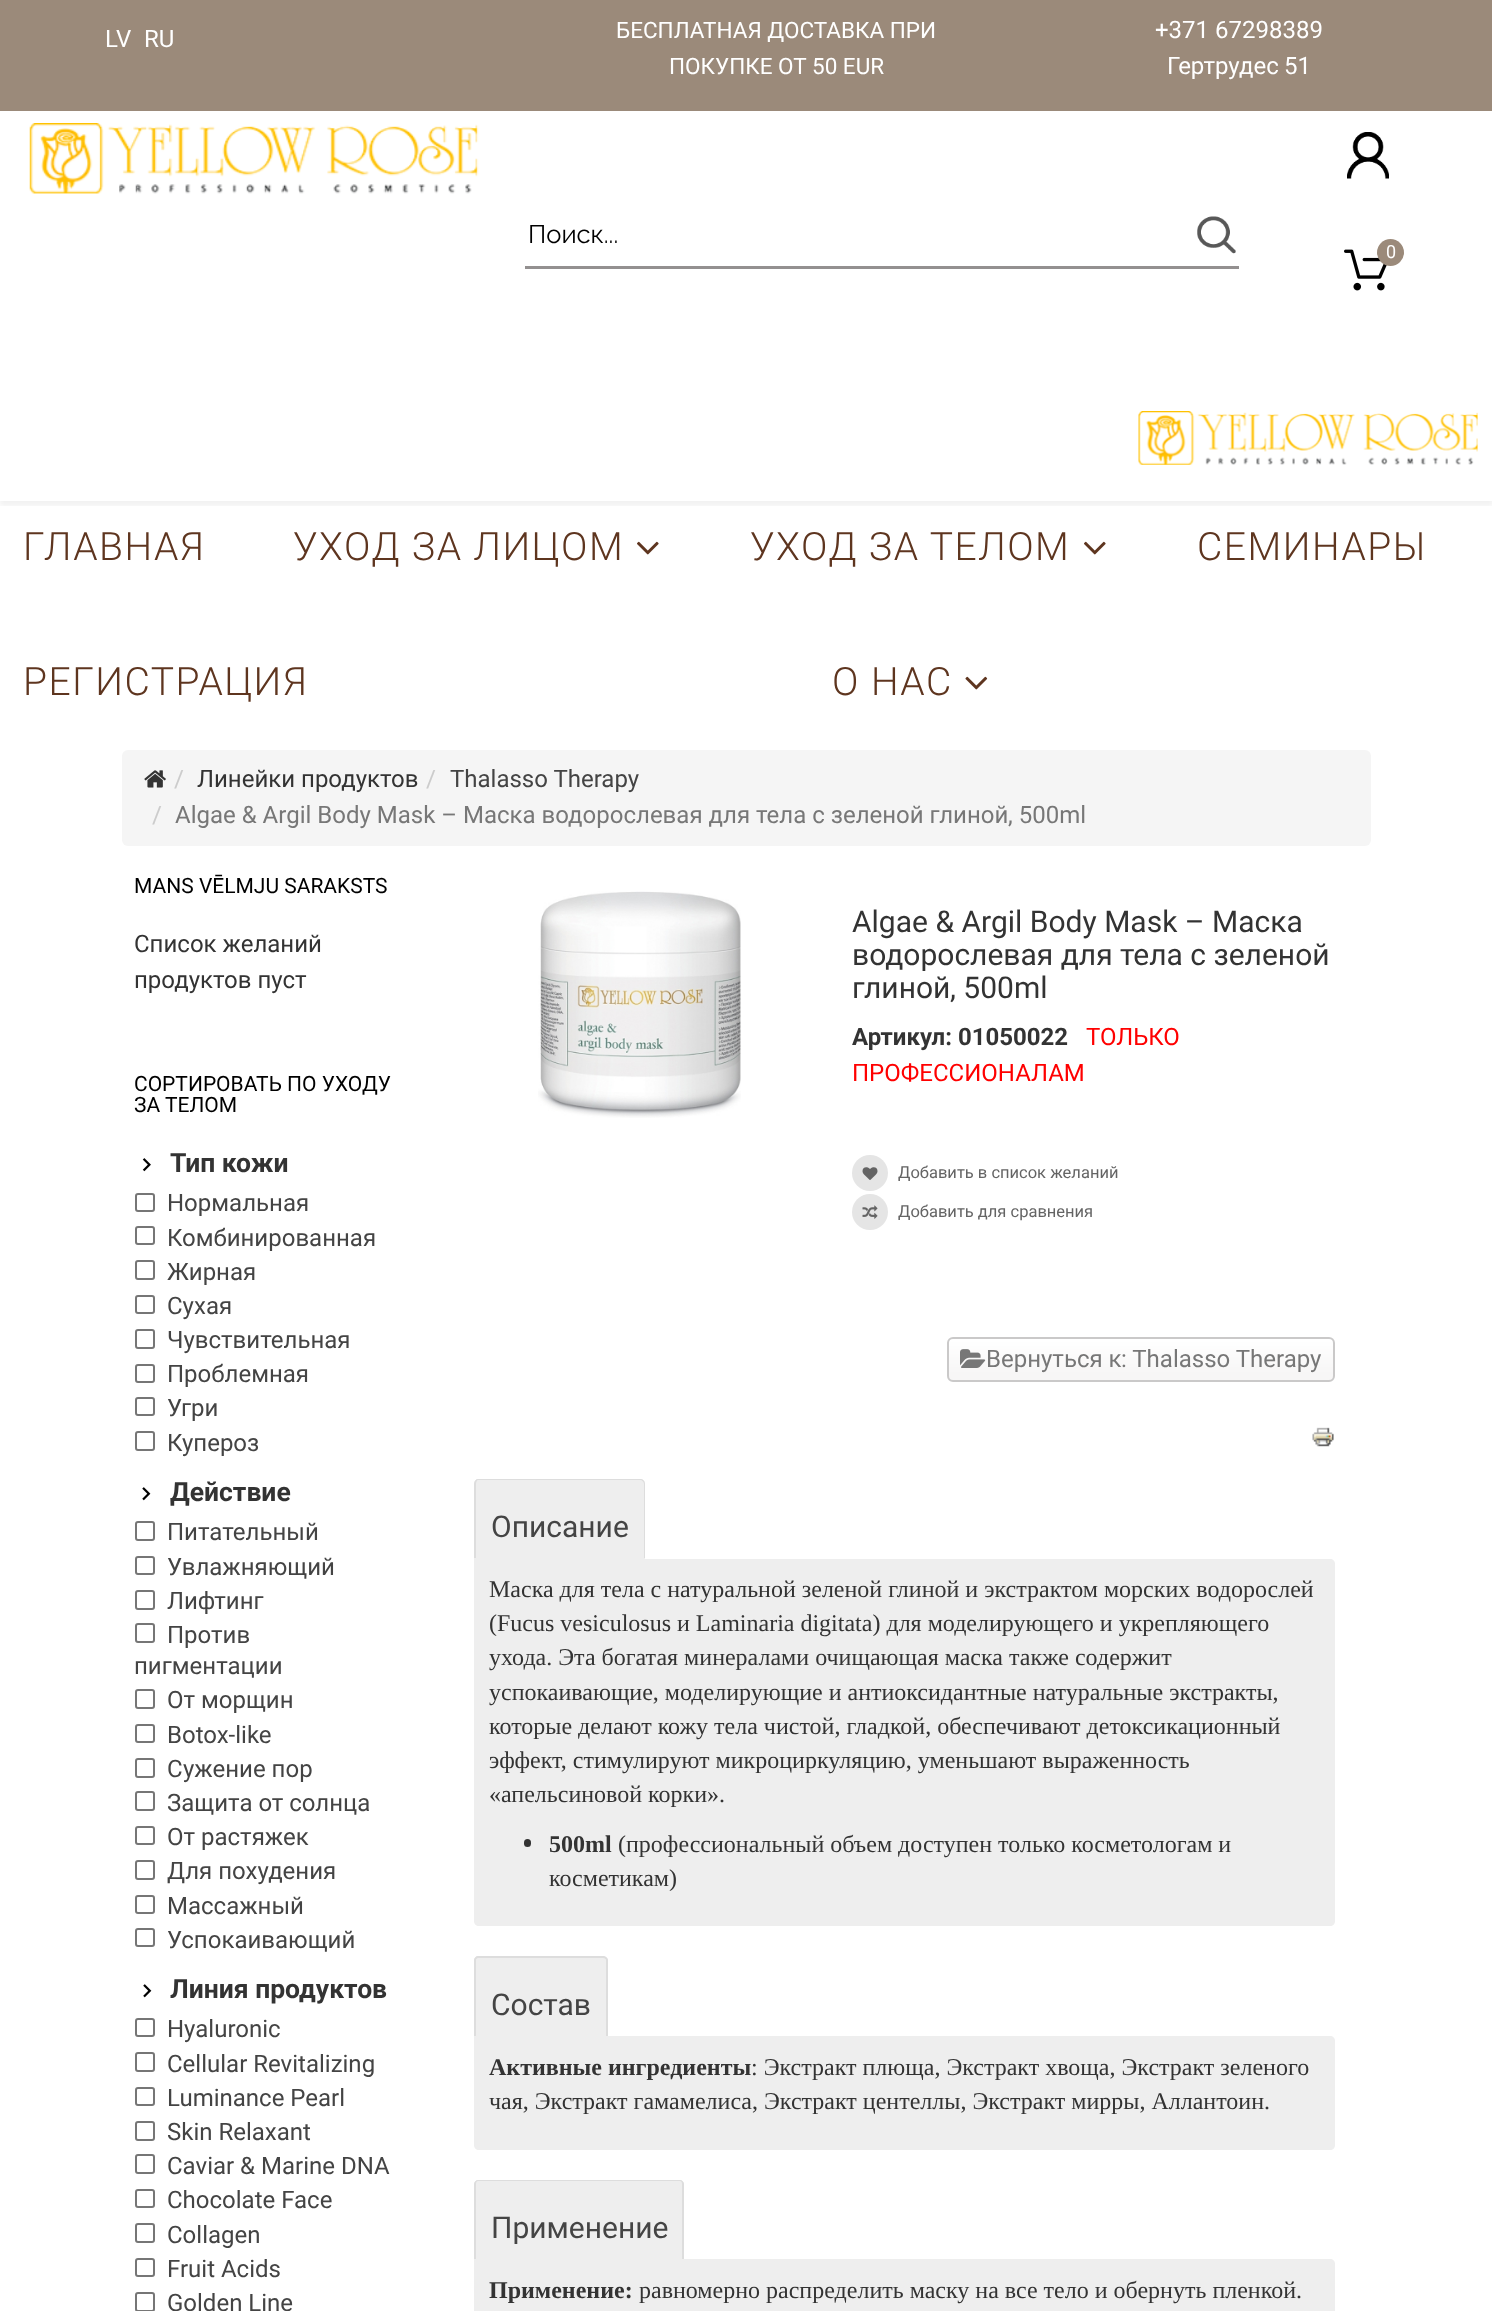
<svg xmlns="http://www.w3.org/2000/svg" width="1492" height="2311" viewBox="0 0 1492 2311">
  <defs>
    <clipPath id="clip1"><rect x="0" y="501" width="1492" height="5"/></clipPath>
    <filter id="blur1" x="-50%" y="-200%" width="200%" height="500%"><feGaussianBlur stdDeviation="2"/></filter>
  </defs>
  <rect width="100%" height="100%" fill="#ffffff"/>
  <rect x="0" y="0" width="1492" height="111" fill="#9b8a7a"/>
  <text x="105" y="47" font-family="Roboto" font-size="24" fill="#ffffff">LV</text>
  <text x="144" y="47" font-family="Roboto" font-size="24" fill="#ffffff">RU</text>
  <text x="616" y="38" font-family="'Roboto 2'" font-size="22.5" fill="#ffffff">БЕСПЛАТНАЯ ДОСТАВКА ПРИ</text>
  <text x="669" y="74" font-family="'Roboto 2'" font-size="22.5" fill="#ffffff">ПОКУПКЕ ОТ</text>
  <text x="812" y="74" font-family="Roboto" font-size="22.5" fill="#ffffff">50 EUR</text>
  <text x="1155" y="38" font-family="Roboto" font-size="24" fill="#ffffff">+371 67298389</text>
  <text x="1167" y="74" font-family="'Roboto 2'" font-size="24" fill="#ffffff">Гертрудес</text>
  <text x="1284" y="74" font-family="Roboto" font-size="24" fill="#ffffff">51</text>
  <image x="29" y="123" width="450" height="71" href="img1.png"/>
  <text x="528" y="243" font-family="Raleway" font-size="25.5" font-weight="100" fill="#000000">Поиск...</text>
  <image x="1197" y="216" width="39" height="38" href="img2.png"/>
  <rect x="525" y="266" width="714" height="3" fill="#939090"/>
  <image x="1347" y="132" width="42" height="47" href="img3.png"/>
  <image x="1344" y="249" width="43" height="42" href="img4.png"/>
  <circle cx="1390.5" cy="252.5" r="13.5" fill="#9b8a7a"/>
  <text x="1386" y="258" font-family="Roboto" font-size="18" fill="#ffffff">0</text>
  <g clip-path="url(#clip1)">
    <rect x="0" y="371" width="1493" height="135" fill="#000000" fill-opacity="0.05" filter="url(#blur1)"/>
  </g>
  <image x="1138" y="411" width="340" height="54" href="img5.png"/>
  <text x="23" y="560" font-family="Roboto" font-size="39" font-weight="300" letter-spacing="1.5" fill="#5e351f">ГЛАВНАЯ</text>
  <text x="293" y="560" font-family="Roboto" font-size="39" font-weight="300" letter-spacing="1.5" fill="#5e351f">УХОД ЗА ЛИЦОМ</text>
  <image x="637" y="541" width="22" height="14" href="img6.png"/>
  <text x="750" y="560" font-family="Roboto" font-size="39" font-weight="300" letter-spacing="1.5" fill="#5e351f">УХОД ЗА ТЕЛОМ</text>
  <image x="1084" y="541" width="22" height="14" href="img6.png"/>
  <text x="1197" y="560" font-family="Roboto" font-size="39" font-weight="300" letter-spacing="1.5" fill="#5e351f">СЕМИНАРЫ</text>
  <text x="23" y="695" font-family="Roboto" font-size="39" font-weight="300" letter-spacing="1.5" fill="#5e351f">РЕГИСТРАЦИЯ</text>
  <text x="832" y="695" font-family="Roboto" font-size="39" font-weight="300" letter-spacing="1.5" fill="#5e351f">О НАС</text>
  <image x="965" y="676" width="23" height="14" href="img7.png"/>
  <rect x="122" y="750" width="1249" height="96" rx="6" fill="#f5f5f5"/>
  <image x="144" y="770" width="22" height="18" href="img8.png"/>
  <text x="174" y="787" font-family="Roboto" font-size="24" fill="#cccccc">/</text>
  <text x="197" y="787" font-family="'Roboto 2'" font-size="24" fill="#333333">Линейки продуктов</text>
  <text x="426" y="787" font-family="Roboto" font-size="24" fill="#cccccc">/</text>
  <text x="450" y="787" font-family="Roboto" font-size="24" fill="#444444">Thalasso Therapy</text>
  <text x="152" y="823" font-family="Roboto" font-size="24" fill="#cccccc">/</text>
  <text x="175" y="823" font-family="Roboto" font-size="24" fill="#777777">Algae &amp; Argil Body Mask –</text>
  <text x="463" y="823" font-family="'Roboto 2'" font-size="24" fill="#777777">Маска водорослевая для тела с зеленой глиной</text>
  <text x="1008" y="823" font-family="Roboto" font-size="24" fill="#777777">, 500ml</text>
  <text x="134" y="893" font-family="Roboto" font-size="21" fill="#000000">MANS VĒLMJU SARAKSTS</text>
  <text x="134" y="952" font-family="'Roboto 2'" font-size="24" fill="#333333">Список желаний</text>
  <text x="134" y="988" font-family="'Roboto 2'" font-size="24" fill="#333333">продуктов пуст</text>
  <text x="134" y="1091" font-family="'Roboto 2'" font-size="21" fill="#000000">СОРТИРОВАТЬ ПО УХОДУ</text>
  <text x="134" y="1112" font-family="'Roboto 2'" font-size="21" fill="#000000">ЗА ТЕЛОМ</text>
  <image x="142" y="1158" width="9" height="14" href="img9.png"/>
  <text x="170" y="1172" font-family="Roboto" font-size="26.5" font-weight="bold" fill="#333333">Тип кожи</text>
  <rect x="136" y="1194" width="18" height="17" rx="2" fill="none" stroke="#767676" stroke-width="2"/>
  <text x="167" y="1211" font-family="'Roboto 2'" font-size="24" fill="#444444">Нормальная</text>
  <rect x="136" y="1227" width="18" height="17" rx="2" fill="none" stroke="#767676" stroke-width="2"/>
  <text x="167" y="1246" font-family="'Roboto 2'" font-size="24" fill="#444444">Комбинированная</text>
  <rect x="136" y="1261" width="18" height="18" rx="2" fill="none" stroke="#767676" stroke-width="2"/>
  <text x="167" y="1280" font-family="'Roboto 2'" font-size="24" fill="#444444">Жирная</text>
  <rect x="136" y="1296" width="18" height="17" rx="2" fill="none" stroke="#767676" stroke-width="2"/>
  <text x="167" y="1314" font-family="'Roboto 2'" font-size="24" fill="#444444">Сухая</text>
  <rect x="136" y="1330" width="18" height="18" rx="2" fill="none" stroke="#767676" stroke-width="2"/>
  <text x="167" y="1348" font-family="'Roboto 2'" font-size="24" fill="#444444">Чувствительная</text>
  <rect x="136" y="1365" width="18" height="17" rx="2" fill="none" stroke="#767676" stroke-width="2"/>
  <text x="167" y="1382" font-family="'Roboto 2'" font-size="24" fill="#444444">Проблемная</text>
  <rect x="136" y="1398" width="18" height="17" rx="2" fill="none" stroke="#767676" stroke-width="2"/>
  <text x="167" y="1416" font-family="'Roboto 2'" font-size="24" fill="#444444">Угри</text>
  <rect x="136" y="1432" width="18" height="18" rx="2" fill="none" stroke="#767676" stroke-width="2"/>
  <text x="167" y="1451" font-family="'Roboto 2'" font-size="24" fill="#444444">Купероз</text>
  <image x="142" y="1487" width="9" height="14" href="img10.png"/>
  <text x="170" y="1501" font-family="Roboto" font-size="26.5" font-weight="bold" fill="#333333">Действие</text>
  <rect x="136" y="1522" width="18" height="18" rx="2" fill="none" stroke="#767676" stroke-width="2"/>
  <text x="167" y="1540" font-family="'Roboto 2'" font-size="24" fill="#444444">Питательный</text>
  <rect x="136" y="1557" width="18" height="17" rx="2" fill="none" stroke="#767676" stroke-width="2"/>
  <text x="167" y="1575" font-family="'Roboto 2'" font-size="24" fill="#444444">Увлажняющий</text>
  <rect x="136" y="1591" width="18" height="18" rx="2" fill="none" stroke="#767676" stroke-width="2"/>
  <text x="167" y="1609" font-family="'Roboto 2'" font-size="24" fill="#444444">Лифтинг</text>
  <rect x="136" y="1624" width="18" height="18" rx="2" fill="none" stroke="#767676" stroke-width="2"/>
  <text x="167" y="1643" font-family="'Roboto 2'" font-size="24" fill="#444444">Против</text>
  <text x="134" y="1674" font-family="'Roboto 2'" font-size="24" fill="#444444">пигментации</text>
  <rect x="136" y="1690" width="18" height="18" rx="2" fill="none" stroke="#767676" stroke-width="2"/>
  <text x="167" y="1708" font-family="'Roboto 2'" font-size="24" fill="#444444">От морщин</text>
  <rect x="136" y="1725" width="18" height="17" rx="2" fill="none" stroke="#767676" stroke-width="2"/>
  <text x="167" y="1743" font-family="Roboto" font-size="24" fill="#444444">Botox-like</text>
  <rect x="136" y="1759" width="18" height="18" rx="2" fill="none" stroke="#767676" stroke-width="2"/>
  <text x="167" y="1777" font-family="Roboto" font-size="24" fill="#444444">C</text>
  <text x="183" y="1777" font-family="'Roboto 2'" font-size="24" fill="#444444">ужение пор</text>
  <rect x="136" y="1792" width="18" height="18" rx="2" fill="none" stroke="#767676" stroke-width="2"/>
  <text x="167" y="1811" font-family="'Roboto 2'" font-size="24" fill="#444444">Защита от солнца</text>
  <rect x="136" y="1827" width="18" height="17" rx="2" fill="none" stroke="#767676" stroke-width="2"/>
  <text x="167" y="1845" font-family="'Roboto 2'" font-size="24" fill="#444444">От растяжек</text>
  <rect x="136" y="1861" width="18" height="18" rx="2" fill="none" stroke="#767676" stroke-width="2"/>
  <text x="167" y="1879" font-family="'Roboto 2'" font-size="24" fill="#444444">Для похудения</text>
  <rect x="136" y="1896" width="18" height="17" rx="2" fill="none" stroke="#767676" stroke-width="2"/>
  <text x="167" y="1914" font-family="'Roboto 2'" font-size="24" fill="#444444">Массажный</text>
  <rect x="136" y="1929" width="18" height="17" rx="2" fill="none" stroke="#767676" stroke-width="2"/>
  <text x="167" y="1948" font-family="'Roboto 2'" font-size="24" fill="#444444">Успокаивающий</text>
  <image x="143" y="1984" width="9" height="14" href="img11.png"/>
  <text x="170" y="1998" font-family="Roboto" font-size="26.5" font-weight="bold" fill="#333333">Линия продуктов</text>
  <rect x="136" y="2019" width="18" height="17" rx="2" fill="none" stroke="#767676" stroke-width="2"/>
  <text x="167" y="2037" font-family="Roboto" font-size="24" fill="#444444">Hyaluronic</text>
  <rect x="136" y="2053" width="18" height="18" rx="2" fill="none" stroke="#767676" stroke-width="2"/>
  <text x="167" y="2072" font-family="Roboto" font-size="24" fill="#444444">Cellular Revitalizing</text>
  <rect x="136" y="2088" width="18" height="17" rx="2" fill="none" stroke="#767676" stroke-width="2"/>
  <text x="167" y="2106" font-family="Roboto" font-size="24" fill="#444444">Luminance Pearl</text>
  <rect x="136" y="2122" width="18" height="18" rx="2" fill="none" stroke="#767676" stroke-width="2"/>
  <text x="167" y="2140" font-family="Roboto" font-size="24" fill="#444444">Skin Relaxant</text>
  <rect x="136" y="2155" width="18" height="18" rx="2" fill="none" stroke="#767676" stroke-width="2"/>
  <text x="167" y="2174" font-family="Roboto" font-size="24" fill="#444444">Caviar &amp; Marine DNA</text>
  <rect x="136" y="2190" width="18" height="17" rx="2" fill="none" stroke="#767676" stroke-width="2"/>
  <text x="167" y="2208" font-family="Roboto" font-size="24" fill="#444444">Chocolate Face</text>
  <rect x="136" y="2224" width="18" height="18" rx="2" fill="none" stroke="#767676" stroke-width="2"/>
  <text x="167" y="2243" font-family="Roboto" font-size="24" fill="#444444">Collagen</text>
  <rect x="136" y="2259" width="18" height="17" rx="2" fill="none" stroke="#767676" stroke-width="2"/>
  <text x="167" y="2277" font-family="Roboto" font-size="24" fill="#444444">Fruit Acids</text>
  <rect x="136" y="2293" width="18" height="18" rx="2" fill="none" stroke="#767676" stroke-width="2"/>
  <text x="167" y="2311" font-family="Roboto" font-size="24" fill="#444444">Golden Line</text>
  <image x="538" y="891" width="203" height="227" href="img12.png"/>
  <text x="852" y="932" font-family="Roboto" font-size="30" fill="#333333">Algae &amp; Argil Body Mask –</text>
  <text x="1212" y="932" font-family="'Roboto 2'" font-size="30" fill="#333333">Маска</text>
  <text x="852" y="965" font-family="'Roboto 2'" font-size="30" fill="#333333">водорослевая для тела с зеленой</text>
  <text x="852" y="998" font-family="'Roboto 2'" font-size="30" fill="#333333">глиной</text>
  <text x="950" y="998" font-family="Roboto" font-size="30" fill="#333333">, 500ml</text>
  <text x="852" y="1045" font-family="Roboto" font-size="24" font-weight="bold" fill="#333333">Артикул: 01050022</text>
  <text x="1086" y="1045" font-family="'Roboto 2'" font-size="24" fill="#ff0000">ТОЛЬКО</text>
  <text x="852" y="1081" font-family="'Roboto 2'" font-size="24" fill="#ff0000">ПРОФЕССИОНАЛАМ</text>
  <circle cx="870" cy="1173" r="18" fill="#e5e5e5"/>
  <image x="862" y="1167" width="16" height="13" href="img13.png"/>
  <text x="898" y="1178" font-family="'Roboto 2'" font-size="16.5" fill="#646464">Добавить в список желаний</text>
  <circle cx="870" cy="1212" r="18" fill="#e5e5e5"/>
  <image x="862" y="1205" width="16" height="14" href="img14.png"/>
  <text x="898" y="1217" font-family="'Roboto 2'" font-size="16.5" fill="#646464">Добавить для сравнения</text>
  <image x="947" y="1338" width="388" height="43" href="img15.png"/>
  <rect x="948" y="1338" width="386" height="43" rx="5" fill="none" stroke="#cac9c9" stroke-width="2"/>
  <image x="960" y="1349" width="26" height="19" href="img16.png"/>
  <text x="986" y="1367" font-family="'Roboto 2'" font-size="24" fill="#777777">Вернуться к</text>
  <text x="1121" y="1367" font-family="Roboto" font-size="24" fill="#777777">: Thalasso Therapy</text>
  <image x="1312" y="1427" width="22" height="20" href="img17.png"/>
  <path d="M479 1479H640C643 1479 645 1481 645 1484V1559H474V1484C474 1481 476 1479 479 1479Z" fill="#eeeeee"/>
  <path d="M478 1479H640C643 1479 645 1481 645 1484V1558H474V1484C474 1481 476 1479 478 1479ZM478 1480H640C642 1480 644 1482 644 1484V1558H476V1484C476 1482 477 1480 478 1480Z" fill="#dddddd" fill-rule="evenodd"/>
  <text x="491" y="1537" font-family="'Roboto 2'" font-size="30" fill="#444444">Описание</text>
  <path d="M474 1559H1330C1333 1559 1335 1561 1335 1564V1921C1335 1924 1333 1926 1330 1926H479C476 1926 474 1924 474 1921Z" fill="#eeeeee"/>
  <text x="489" y="1597" font-family="Liberation Serif" font-size="24" fill="#333333">Маска для тела с натуральной зеленой глиной и экстрактом морских водорослей</text>
  <text x="489" y="1631" font-family="Liberation Serif" font-size="24" fill="#333333">(Fucus vesiculosus и Laminaria digitata) для моделирующего и укрепляющего</text>
  <text x="489" y="1665" font-family="Liberation Serif" font-size="24" fill="#333333">ухода. Эта богатая минералами очищающая маска также содержит</text>
  <text x="489" y="1700" font-family="Liberation Serif" font-size="24" fill="#333333">успокаивающие, моделирующие и антиоксидантные натуральные экстракты,</text>
  <text x="489" y="1734" font-family="Liberation Serif" font-size="24" fill="#333333">которые делают кожу тела чистой, гладкой, обеспечивают детоксикационный</text>
  <text x="489" y="1768" font-family="Liberation Serif" font-size="24" fill="#333333">эффект, стимулируют микроциркуляцию, уменьшают выраженность</text>
  <text x="489" y="1802" font-family="Liberation Serif" font-size="24" fill="#333333">«апельсиновой корки».</text>
  <rect x="524" y="1839" width="7" height="8" rx="3.5" fill="#333333"/>
  <text x="549" y="1852" font-family="Liberation Serif" font-size="24" font-weight="bold" fill="#333333">500ml</text>
  <text x="618" y="1852" font-family="Liberation Serif" font-size="24" fill="#333333">(профессиональный объем доступен только косметологам и</text>
  <text x="549" y="1886" font-family="Liberation Serif" font-size="24" fill="#333333">косметикам)</text>
  <path d="M479 1956H603C606 1956 608 1958 608 1961V2036H474V1961C474 1958 476 1956 479 1956Z" fill="#eeeeee"/>
  <path d="M478 1956H603C605 1956 608 1958 608 1960V2036H474V1960C474 1958 476 1956 478 1956ZM478 1958H603C605 1958 606 1959 606 1960V2036H476V1960C476 1959 477 1958 478 1958Z" fill="#dddddd" fill-rule="evenodd"/>
  <text x="491" y="2015" font-family="'Roboto 2'" font-size="30" fill="#444444">Состав</text>
  <path d="M474 2036H1330C1333 2036 1335 2038 1335 2041V2145C1335 2148 1333 2150 1330 2150H479C476 2150 474 2148 474 2145Z" fill="#eeeeee"/>
  <text x="489" y="2075" font-family="Liberation Serif" font-size="24" font-weight="bold" fill="#333333">Активные ингредиенты</text>
  <text x="751" y="2075" font-family="Liberation Serif" font-size="24" fill="#333333">: Экстракт плюща, Экстракт хвоща, Экстракт зеленого</text>
  <text x="489" y="2109" font-family="Liberation Serif" font-size="24" fill="#333333">чая, Экстракт гамамелиса, Экстракт центеллы, Экстракт мирры, Аллантоин.</text>
  <path d="M479 2180H679C682 2180 684 2182 684 2185V2259H474V2185C474 2182 476 2180 479 2180Z" fill="#eeeeee"/>
  <path d="M478 2180H680C682 2180 684 2182 684 2184V2259H474V2184C474 2182 476 2180 478 2180ZM478 2181H680C681 2181 682 2182 682 2184V2259H476V2184C476 2182 477 2181 478 2181Z" fill="#dddddd" fill-rule="evenodd"/>
  <text x="491" y="2238" font-family="'Roboto 2'" font-size="30" fill="#444444">Применение</text>
  <path d="M474 2259H1330C1333 2259 1335 2261 1335 2264V2311C1335 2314 1333 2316 1330 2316H479C476 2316 474 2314 474 2311Z" fill="#eeeeee"/>
  <text x="489" y="2298" font-family="Liberation Serif" font-size="24" font-weight="bold" fill="#333333">Применение:</text>
  <text x="639" y="2298" font-family="Liberation Serif" font-size="24" fill="#333333">равномерно распределить маску на все тело и обернуть пленкой.</text>
</svg>
